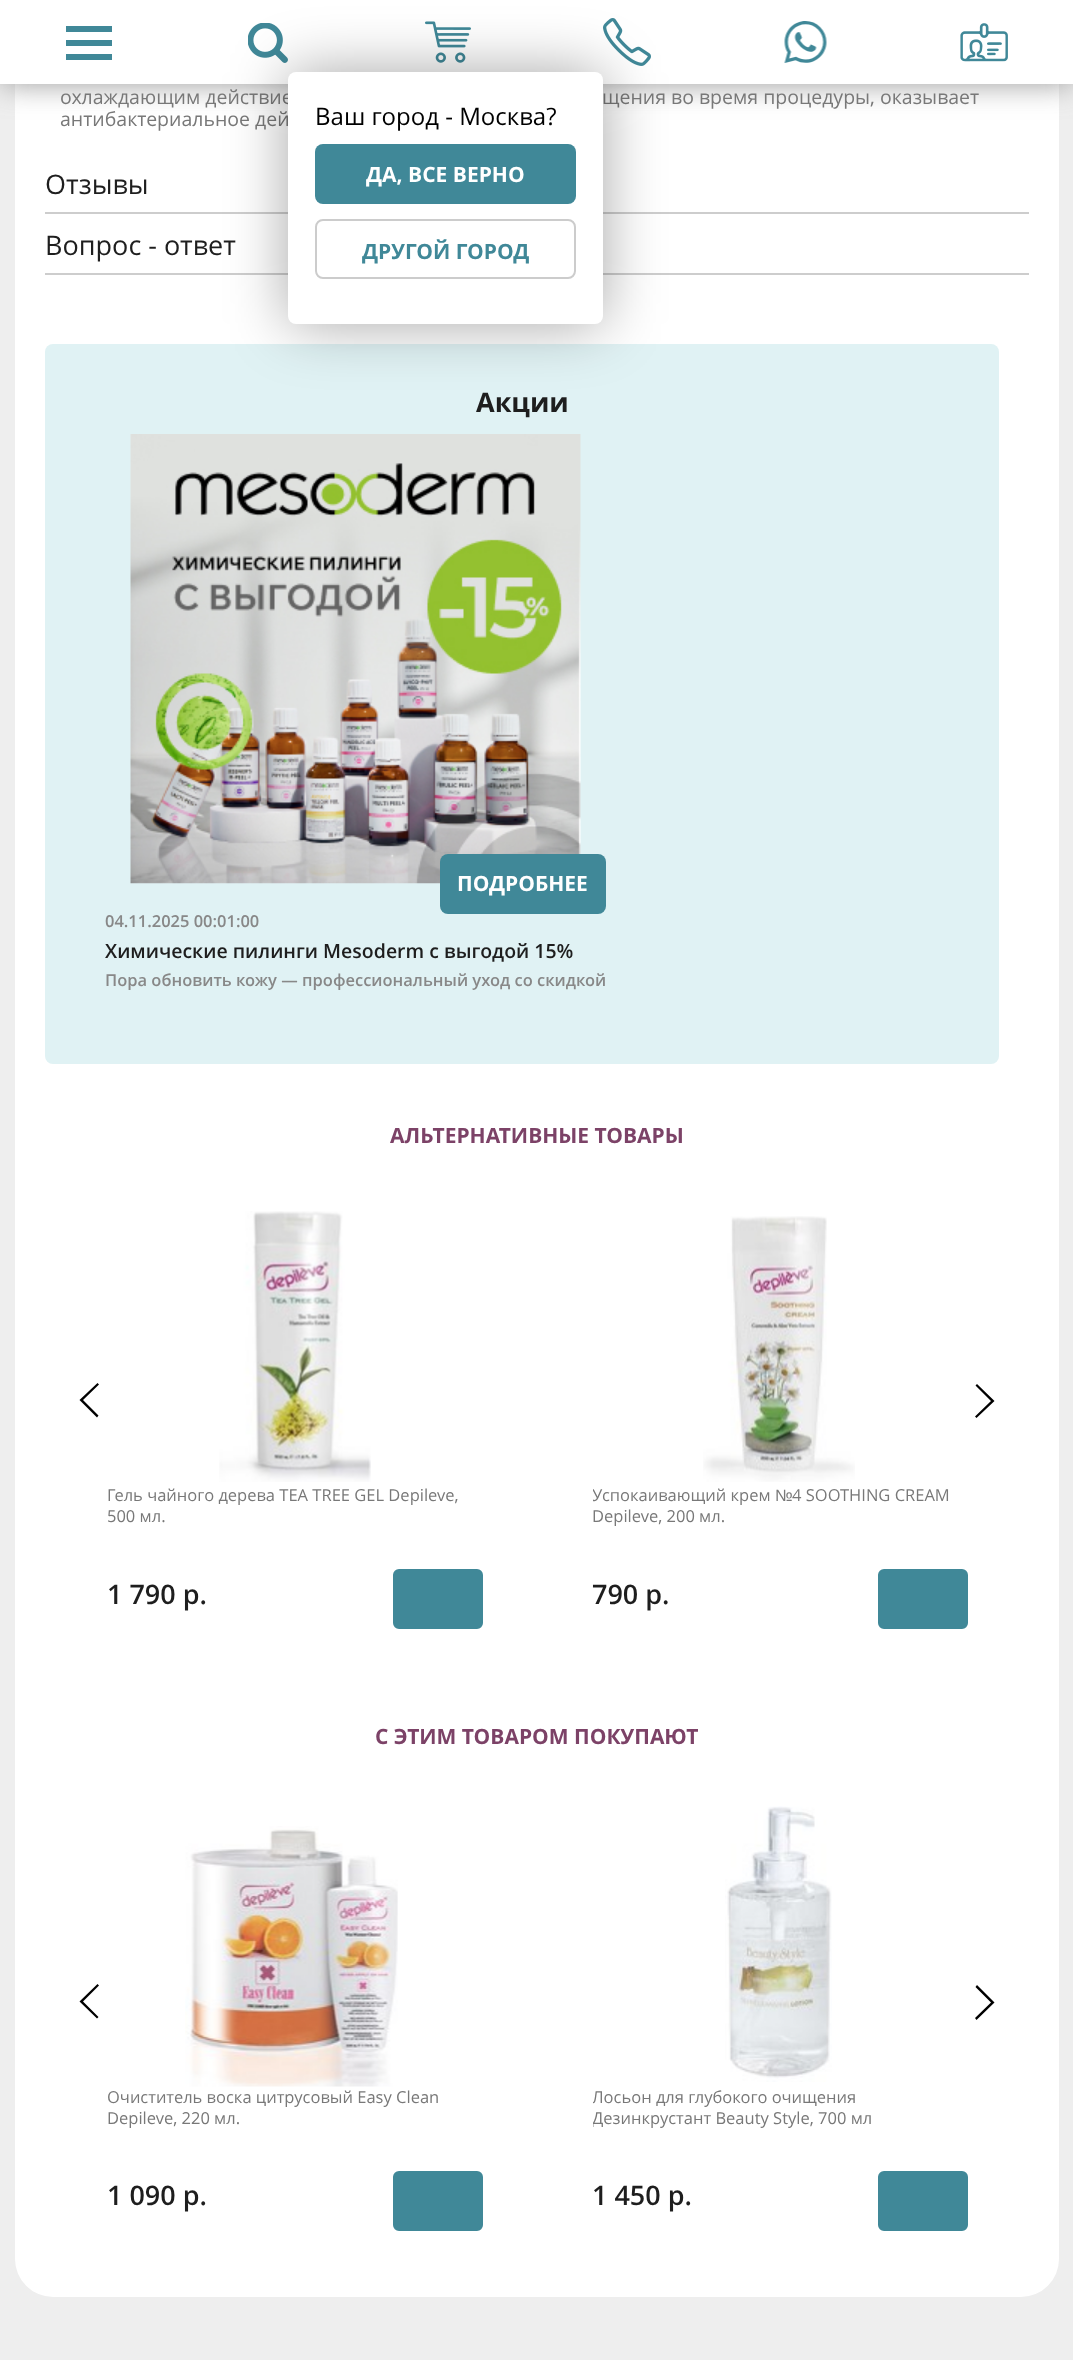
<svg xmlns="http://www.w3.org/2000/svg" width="1073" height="2360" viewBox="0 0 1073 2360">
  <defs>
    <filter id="blur1" x="-50%" y="-200%" width="200%" height="500%"><feGaussianBlur stdDeviation="15"/></filter>
    <clipPath id="clip1"><rect x="593" y="1485" width="375" height="65"/></clipPath>
    <clipPath id="clip2"><rect x="593" y="2087" width="375" height="64"/></clipPath>
    <filter id="blur2" x="-50%" y="-200%" width="200%" height="500%"><feGaussianBlur stdDeviation="30"/></filter>
  </defs>
  <rect width="100%" height="100%" fill="#eeeeee"/>
  <rect x="15" y="-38" width="1044" height="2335" rx="38" fill="#ffffff"/>
  <rect x="0" y="0" width="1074" height="84" fill="#999999" filter="url(#blur1)"/>
  <rect x="0" y="0" width="1073" height="84" fill="#ffffff"/>
  <path d="M66 60V54H112V60ZM66 40H112V46H66ZM66 26H112V32H66Z" fill="#408898"/>
  <image x="248" y="23" width="40" height="40" href="img1.png"/>
  <image x="425" y="21" width="46" height="42" href="img2.png"/>
  <image x="603" y="18" width="48" height="48" href="img3.png"/>
  <image x="784" y="21" width="43" height="42" href="img4.png"/>
  <image x="960" y="23" width="48" height="39" href="img5.png"/>
  <text x="60" y="104" font-family="Open Sans" font-size="19.5" fill="#787878">охлаждающим действие</text>
  <text x="602" y="104" font-family="Open Sans" font-size="19.5" fill="#787878">щения во время процедуры, оказывает</text>
  <text x="60" y="126" font-family="Open Sans" font-size="19.5" fill="#787878">антибактериальное дей</text>
  <text x="45" y="194" font-family="Open Sans" font-size="27" fill="#1e1e1e">Отзывы</text>
  <rect x="45" y="212" width="984" height="2" fill="#cdcdcd"/>
  <text x="45" y="255" font-family="Open Sans" font-size="27" fill="#1e1e1e">Вопрос - ответ</text>
  <rect x="45" y="273" width="984" height="2" fill="#cdcdcd"/>
  <rect x="45" y="344" width="954" height="720" rx="8" fill="#e0f2f4"/>
  <text x="476" y="412" font-family="Open Sans" font-size="27" font-weight="bold" fill="#1e1e1e">Акции</text>
  <image x="130" y="434" width="451" height="450" href="img6.png"/>
  <rect x="440" y="854" width="166" height="60" rx="8" fill="#408898"/>
  <text x="457" y="891" font-family="Open Sans" font-size="21" font-weight="bold" fill="#ffffff">ПОДРОБНЕЕ</text>
  <text x="105" y="927" font-family="Open Sans" font-size="16.5" font-weight="600" fill="#888888">04.11.2025 00:01:00</text>
  <text x="105" y="958" font-family="Open Sans" font-size="19.5" font-weight="600" fill="#1e1e1e">Химические пилинги Mesoderm с выгодой 15%</text>
  <text x="105" y="986" font-family="Open Sans" font-size="16.5" font-weight="600" fill="#888888">Пора обновить кожу — профессиональный уход со скидкой</text>
  <text x="390" y="1143" font-family="Open Sans" font-size="21" font-weight="bold" fill="#7c4267">АЛЬТЕРНАТИВНЫЕ ТОВАРЫ</text>
  <path d="M99 1384.5L97.5 1383L79.5 1400L97 1417.5L98.5 1415.5L83 1400Z" fill="#000000"/>
  <path d="M975 1416.5L976.5 1418L994.5 1401L977 1384L975.5 1385.5L991 1401Z" fill="#000000"/>
  <image x="219" y="1211" width="152" height="271" href="img7.png"/>
  <text x="107" y="1501" font-family="Open Sans" font-size="16.5" fill="#787878">Гель чайного дерева TEA TREE GEL Depileve,</text>
  <text x="107" y="1522" font-family="Open Sans" font-size="16.5" fill="#787878">500 мл.</text>
  <text x="107" y="1604" font-family="Open Sans" font-size="27" font-weight="600" fill="#1e1e1e">1 790 р.</text>
  <rect x="394" y="1570" width="88" height="58" rx="5" fill="#408898" stroke="#408898" stroke-width="2"/>
  <image x="703" y="1216" width="152" height="266" href="img8.png"/>
  <g clip-path="url(#clip1)">
    <text x="592" y="1501" font-family="Open Sans" font-size="16.5" fill="#787878">Успокаивающий крем</text>
  </g>
  <text x="775" y="1501" font-family="Liberation Sans" font-size="16.5" fill="#787878">№</text>
  <text x="792" y="1501" font-family="Open Sans" font-size="16.5" fill="#787878">4 SOOTHING CREAM</text>
  <text x="592" y="1522" font-family="Open Sans" font-size="16.5" fill="#787878">Depileve, 200 мл.</text>
  <text x="592" y="1604" font-family="Open Sans" font-size="27" font-weight="600" fill="#1e1e1e">790 р.</text>
  <rect x="879" y="1570" width="88" height="58" rx="5" fill="#408898" stroke="#408898" stroke-width="2"/>
  <text x="375" y="1744" font-family="Open Sans" font-size="21" font-weight="bold" fill="#7c4267">С ЭТИМ ТОВАРОМ ПОКУПАЮТ</text>
  <path d="M99 1985.5L97.5 1984L79.5 2001.5L97 2018.5L98.5 2017L83 2001.5Z" fill="#000000"/>
  <path d="M975 2018L976.5 2020L994.5 2002.5L977 1985L975.5 1987L991 2002.5Z" fill="#000000"/>
  <image x="185" y="1826" width="213" height="261" href="img9.png"/>
  <text x="107" y="2103" font-family="Open Sans" font-size="16.5" fill="#787878">Очиститель воска цитрусовый Easy Clean</text>
  <text x="107" y="2124" font-family="Open Sans" font-size="16.5" fill="#787878">Depileve, 220 мл.</text>
  <text x="107" y="2205" font-family="Open Sans" font-size="27" font-weight="600" fill="#1e1e1e">1 090 р.</text>
  <rect x="394" y="2172" width="88" height="58" rx="5" fill="#408898" stroke="#408898" stroke-width="2"/>
  <image x="725" y="1806" width="107" height="276" href="img10.png"/>
  <g clip-path="url(#clip2)">
    <text x="592" y="2103" font-family="Open Sans" font-size="16.5" fill="#787878">Лосьон для глубокого очищения</text>
    <text x="592" y="2124" font-family="Open Sans" font-size="16.5" fill="#787878">Дезинкрустант Beauty Style, 700 мл</text>
  </g>
  <text x="592" y="2205" font-family="Open Sans" font-size="27" font-weight="600" fill="#1e1e1e">1 450 р.</text>
  <rect x="879" y="2172" width="88" height="58" rx="5" fill="#408898" stroke="#408898" stroke-width="2"/>
  <rect x="288" y="72" width="315" height="252" rx="8" fill="#000000" fill-opacity="0.35" filter="url(#blur2)"/>
  <rect x="288" y="72" width="315" height="252" rx="8" fill="#ffffff"/>
  <text x="315" y="125" font-family="Open Sans" font-size="24" fill="#000000">Ваш город - Москва?</text>
  <rect x="315" y="144" width="261" height="60" rx="8" fill="#408898"/>
  <text x="366" y="182" font-family="Open Sans" font-size="21" font-weight="bold" fill="#ffffff">ДА, ВСЕ ВЕРНО</text>
  <rect x="316" y="220" width="259" height="58" rx="7" fill="none" stroke="#cccccc" stroke-width="2"/>
  <text x="362" y="259" font-family="Open Sans" font-size="21" font-weight="bold" fill="#408898">ДРУГОЙ ГОРОД</text>
</svg>
